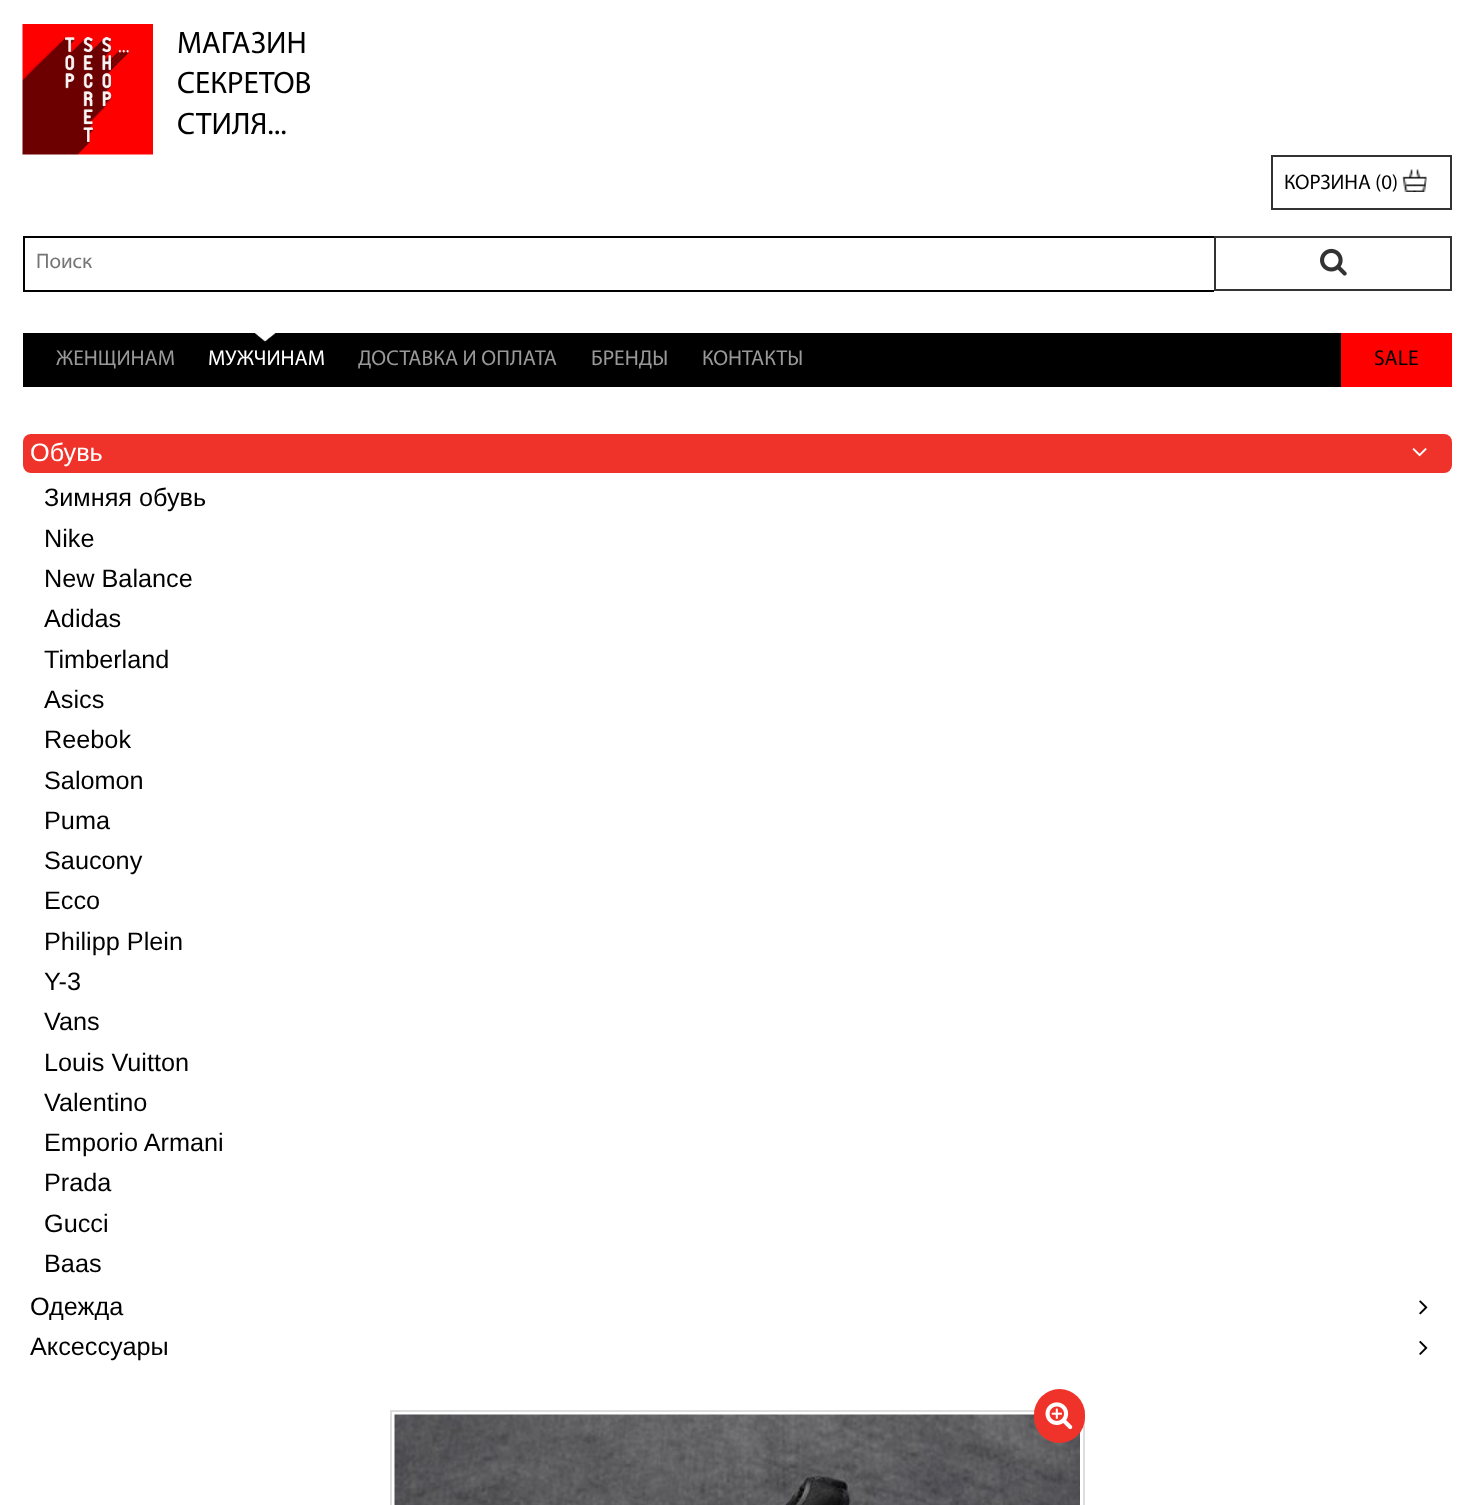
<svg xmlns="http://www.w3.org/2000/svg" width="1474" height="1505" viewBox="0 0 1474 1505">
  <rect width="100%" height="100%" fill="#ffffff"/>
  <image x="22" y="24" width="131" height="131" href="img1.png"/>
  <text x="177" y="53" font-family="Myriad" font-size="31" fill="#000000">МАГАЗИН</text>
  <text x="177" y="93" font-family="Myriad" font-size="31" fill="#000000">СЕКРЕТОВ</text>
  <text x="177" y="134" font-family="Myriad" font-size="31" fill="#000000">СТИЛЯ...</text>
  <rect x="1272" y="156" width="179" height="53" fill="none" stroke="#333333" stroke-width="2"/>
  <text x="1284" y="189" font-family="Myriad" font-size="21" fill="#000000">КОРЗИНА (0)</text>
  <image x="1402" y="169" width="25" height="23" href="img2.png"/>
  <rect x="23" y="236" width="1191" height="2" fill="#000000"/>
  <rect x="23" y="290" width="1191" height="2" fill="#000000"/>
  <rect x="23" y="236" width="2" height="55" fill="#000000"/>
  <text x="36" y="268" font-family="Myriad" font-size="21" fill="#757575">Поиск</text>
  <rect x="1215" y="237" width="236" height="53" fill="none" stroke="#333333" stroke-width="2"/>
  <image x="1320" y="248" width="27" height="28" href="img3.png"/>
  <rect x="23" y="333" width="1318" height="54" fill="#000000"/>
  <text x="56" y="365" font-family="Myriad" font-size="21.5" fill="#999999">ЖЕНЩИНАМ</text>
  <image x="255" y="333" width="21" height="9" href="img4.png"/>
  <text x="208" y="365" font-family="Myriad" font-size="21.5" fill="#ffffff">МУЖЧИНАМ</text>
  <text x="358" y="365" font-family="Myriad" font-size="21.5" fill="#999999">ДОСТАВКА И ОПЛАТА</text>
  <text x="591" y="365" font-family="Myriad" font-size="21.5" fill="#999999">БРЕНДЫ</text>
  <text x="702" y="365" font-family="Myriad" font-size="21.5" fill="#999999">КОНТАКТЫ</text>
  <rect x="1341" y="333" width="111" height="54" fill="#ff0000"/>
  <text x="1374" y="365" font-family="Myriad" font-size="21.5" fill="#000000">SALE</text>
  <rect x="23" y="434" width="1429" height="39" rx="8" fill="#f0332a"/>
  <text x="30" y="461" font-family="Liberation Sans" font-size="25.25" fill="#ffffff">Обувь</text>
  <image x="1412" y="448" width="15" height="9" href="img5.png"/>
  <text x="44" y="506" font-family="Liberation Sans" font-size="25.25" fill="#000000">Зимняя обувь</text>
  <text x="44" y="547" font-family="Liberation Sans" font-size="25.25" fill="#000000">Nike</text>
  <text x="44" y="587" font-family="Liberation Sans" font-size="25.25" fill="#000000">New Balance</text>
  <text x="44" y="627" font-family="Liberation Sans" font-size="25.25" fill="#000000">Adidas</text>
  <text x="44" y="668" font-family="Liberation Sans" font-size="25.25" fill="#000000">Timberland</text>
  <text x="44" y="708" font-family="Liberation Sans" font-size="25.25" fill="#000000">Asics</text>
  <text x="44" y="748" font-family="Liberation Sans" font-size="25.25" fill="#000000">Reebok</text>
  <text x="44" y="789" font-family="Liberation Sans" font-size="25.25" fill="#000000">Salomon</text>
  <text x="44" y="829" font-family="Liberation Sans" font-size="25.25" fill="#000000">Puma</text>
  <text x="44" y="869" font-family="Liberation Sans" font-size="25.25" fill="#000000">Saucony</text>
  <text x="44" y="909" font-family="Liberation Sans" font-size="25.25" fill="#000000">Ecco</text>
  <text x="44" y="950" font-family="Liberation Sans" font-size="25.25" fill="#000000">Philipp Plein</text>
  <text x="44" y="990" font-family="Liberation Sans" font-size="25.25" fill="#000000">Y-3</text>
  <text x="44" y="1030" font-family="Liberation Sans" font-size="25.25" fill="#000000">Vans</text>
  <text x="44" y="1071" font-family="Liberation Sans" font-size="25.25" fill="#000000">Louis Vuitton</text>
  <text x="44" y="1111" font-family="Liberation Sans" font-size="25.25" fill="#000000">Valentino</text>
  <text x="44" y="1151" font-family="Liberation Sans" font-size="25.25" fill="#000000">Emporio Armani</text>
  <text x="44" y="1191" font-family="Liberation Sans" font-size="25.25" fill="#000000">Prada</text>
  <text x="44" y="1232" font-family="Liberation Sans" font-size="25.25" fill="#000000">Gucci</text>
  <text x="44" y="1272" font-family="Liberation Sans" font-size="25.25" fill="#000000">Baas</text>
  <text x="30" y="1315" font-family="Liberation Sans" font-size="25.25" fill="#000000">Одежда</text>
  <image x="1419" y="1300" width="9" height="15" href="img6.png"/>
  <text x="30" y="1355" font-family="Liberation Sans" font-size="25.25" fill="#000000">Аксессуары</text>
  <image x="1419" y="1340" width="9" height="15" href="img7.png"/>
  <rect x="391" y="1411" width="693" height="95" fill="none" stroke="#dddddd" stroke-width="2"/>
  <image x="394" y="1414" width="686" height="91" href="img9.png"/>
  <rect x="1034" y="1389" width="51" height="54" rx="25.5" fill="#f0332a"/>
  <image x="1045" y="1402" width="28" height="28" href="img8.png"/>
</svg>
